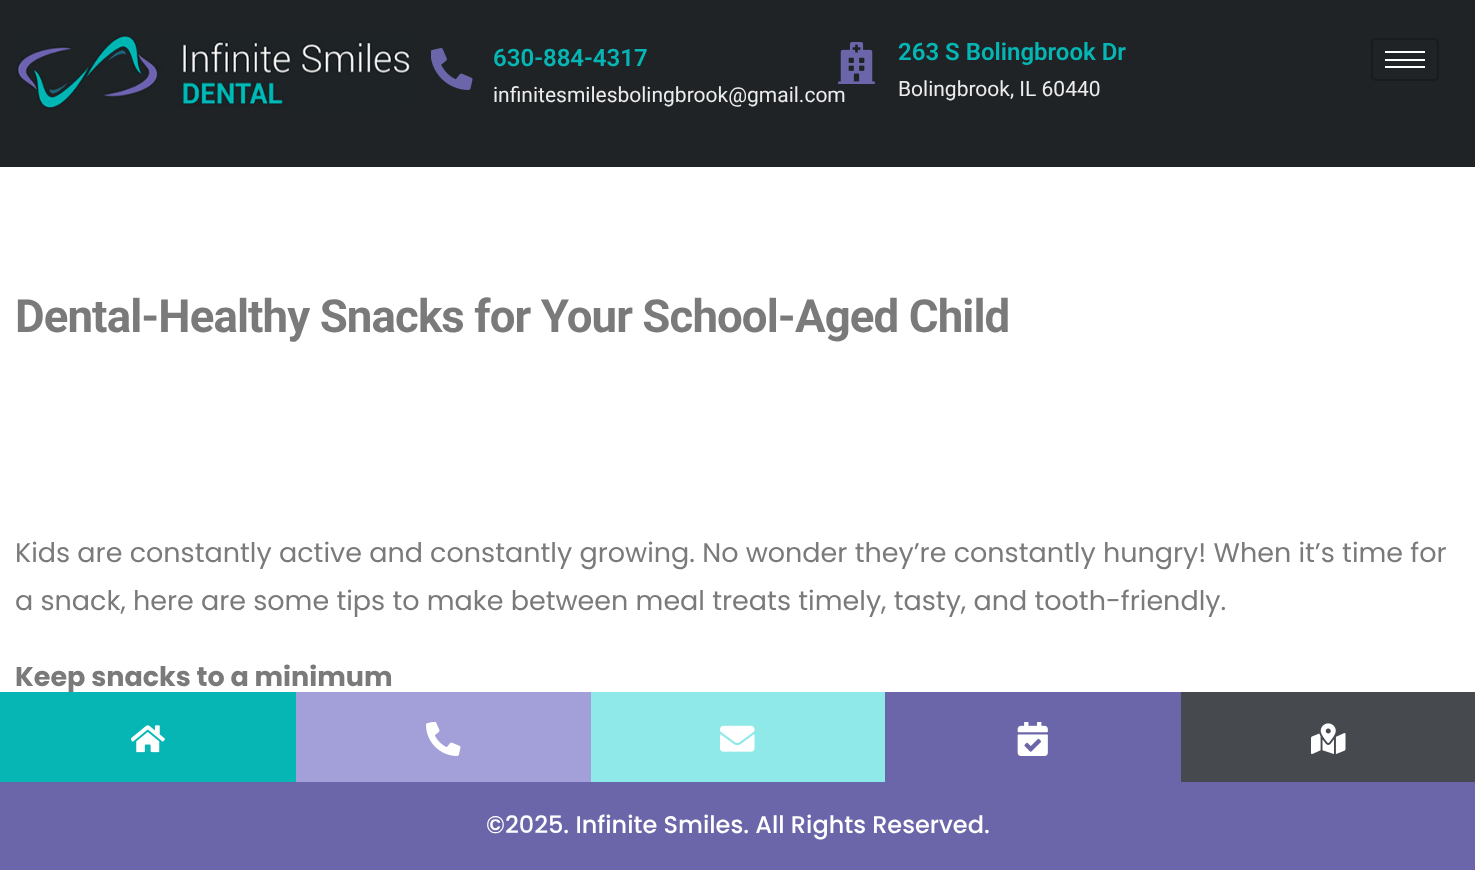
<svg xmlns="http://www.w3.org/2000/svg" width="1475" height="870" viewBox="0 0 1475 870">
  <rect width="100%" height="100%" fill="#ffffff"/>
  <rect x="0" y="0" width="1475" height="167" fill="#1f2326"/>
  <image x="15" y="33" width="396" height="77" href="img1.png"/>
  <image x="431" y="48" width="42" height="42" href="img2.png"/>
  <text x="493" y="66" font-family="Roboto" font-size="24" font-weight="600" fill="#06b6b4">630-884-4317</text>
  <text x="493" y="102" font-family="Roboto" font-size="21" fill="#ececec">infinitesmilesbolingbrook@gmail.com</text>
  <image x="838" y="42" width="37" height="42" href="img3.png"/>
  <text x="898" y="60" font-family="Roboto" font-size="24" font-weight="600" fill="#06b6b4">263 S Bolingbrook Dr</text>
  <text x="898" y="96" font-family="Roboto" font-size="21" fill="#ececec">Bolingbrook, IL 60440</text>
  <rect x="1372" y="39" width="66" height="41" rx="4" fill="none" stroke="#191c1e" stroke-width="2"/>
  <rect x="1385" y="51" width="40" height="2" fill="#ffffff"/>
  <rect x="1385" y="59" width="40" height="2" fill="#ffffff"/>
  <rect x="1385" y="66" width="40" height="2" fill="#ffffff"/>
  <text x="15" y="332" font-family="Roboto" font-size="45.6" font-weight="bold" letter-spacing="-0.9" fill="#7a7a7a">Dental-Healthy Snacks for Your School-Aged Child</text>
  <text x="15" y="562" font-family="Poppins" font-size="27" fill="#7a7a7a">Kids are constantly active and constantly growing. No wonder they’re constantly hungry! When it’s time for</text>
  <text x="15" y="610" font-family="Poppins" font-size="27" fill="#7a7a7a">a snack, here are some tips to make between meal treats timely, tasty, and tooth-friendly.</text>
  <text x="15" y="686" font-family="Poppins" font-size="27" font-weight="bold" fill="#7a7a7a">Keep snacks to a minimum</text>
  <rect x="0" y="692" width="296" height="90" fill="#06b6b4"/>
  <image x="131" y="725" width="34" height="28" href="img4.png"/>
  <rect x="296" y="692" width="295" height="90" fill="#a39fd8"/>
  <image x="426" y="722" width="35" height="34" href="img5.png"/>
  <rect x="591" y="692" width="294" height="90" fill="#8fe9e8"/>
  <image x="720" y="725" width="35" height="27" href="img6.png"/>
  <rect x="885" y="692" width="296" height="90" fill="#6b66a9"/>
  <image x="1017" y="722" width="31" height="34" href="img7.png"/>
  <rect x="1181" y="692" width="294" height="90" fill="#464a4f"/>
  <image x="1311" y="723" width="35" height="31" href="img8.png"/>
  <rect x="0" y="782" width="1475" height="88" fill="#6b66a9"/>
  <text x="486" y="833" font-family="Poppins" font-size="24" font-weight="500" fill="#ffffff">©2025. Infinite Smiles. All Rights Reserved.</text>
</svg>
